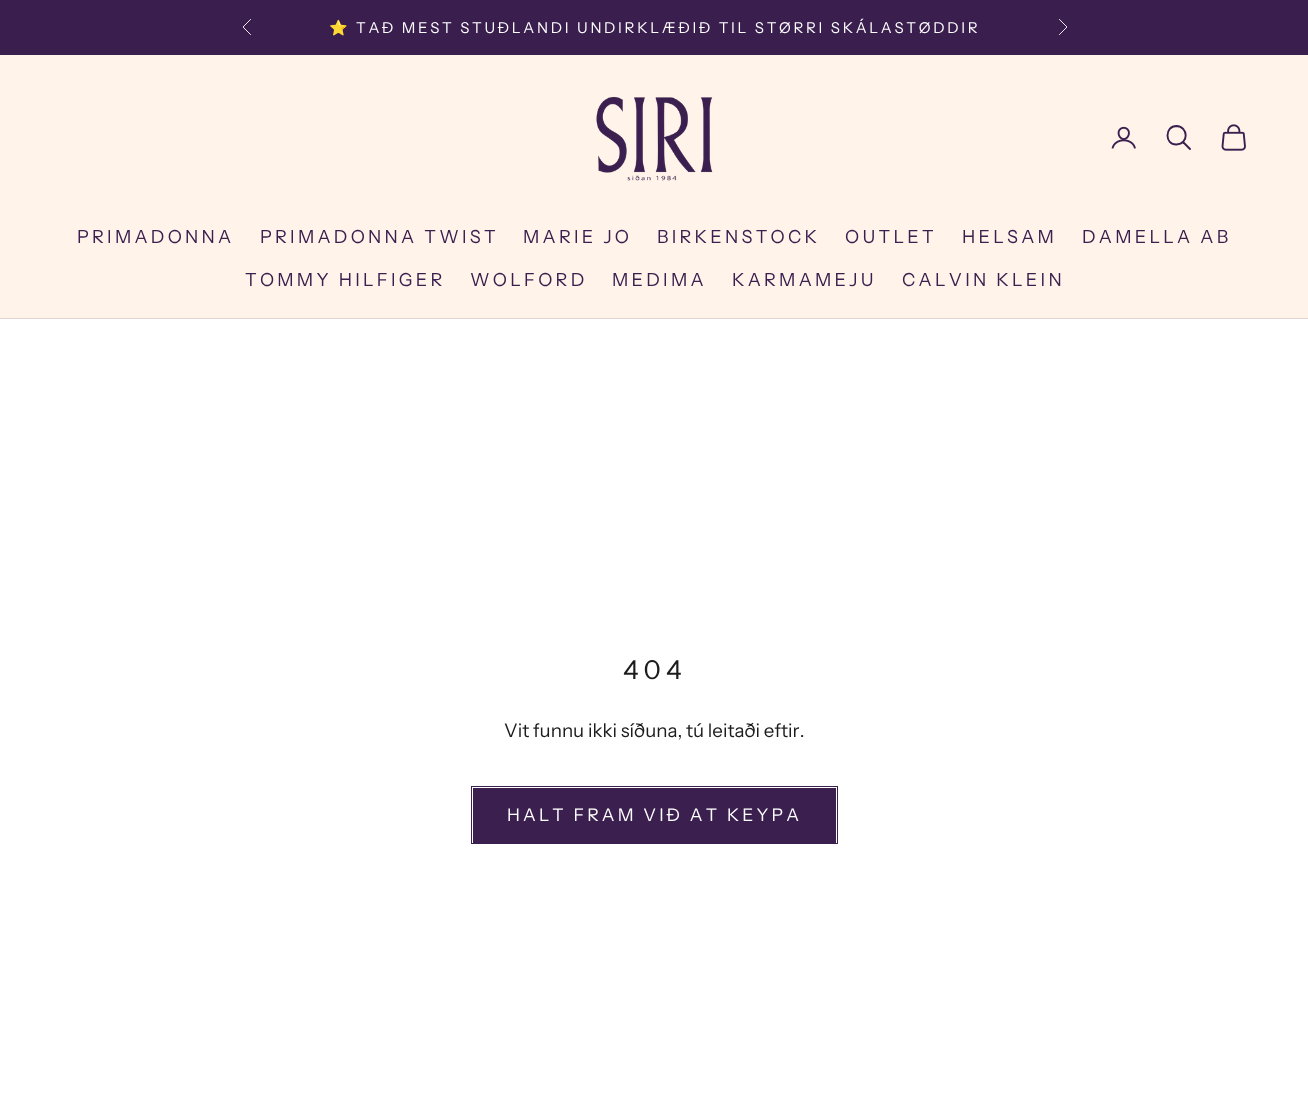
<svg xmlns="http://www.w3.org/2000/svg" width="1308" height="1105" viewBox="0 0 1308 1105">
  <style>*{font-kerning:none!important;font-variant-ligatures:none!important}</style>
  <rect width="100%" height="100%" fill="#ffffff"/>
  <rect x="0" y="0" width="1308" height="55" fill="#391e4e"/>
  <path d="M250.5 19.5L243 27L250.5 34.5" fill="none" stroke="#ffffff" stroke-width="0.9" stroke-linecap="square"/>
  <text x="329" y="33" font-family="Noto Color Emoji" font-size="15" letter-spacing="2.7" fill="#ffffff">⭐</text>
  <text x="356" y="33" font-family="Instrument Sans" font-size="15" letter-spacing="2.7" fill="#ffffff">TAÐ MEST STUÐLANDI</text>
  <text x="577" y="33" font-family="Instrument Sans" font-size="15" letter-spacing="2.7" fill="#ffffff">UNDIRKLÆÐIÐ TIL STØRRI SKÁLASTØDDIR</text>
  <path d="M1059.5 34.5L1067 27L1059.5 19.5" fill="none" stroke="#ffffff" stroke-width="0.9" stroke-linecap="square"/>
  <rect x="0" y="55" width="1308" height="263" fill="#fff3ea"/>
  <rect x="0" y="318" width="1308" height="1" fill="#e2d3d3"/>
  <image x="596" y="96" width="117" height="85" href="img1.png"/>
  <image x="1111" y="126" width="25" height="23" href="img2.png"/>
  <path d="M1176.5 126C1164.5 126 1164.5 145 1176.5 144.5C1189 144 1188.5 126.5 1176.5 126Z" fill="none" stroke="#3b204f" stroke-width="1.9"/>
  <path d="M1183.5 142.5L1190 149" fill="none" stroke="#3b204f" stroke-width="1.9" stroke-linecap="round"/>
  <image x="1221" y="124" width="25" height="27" href="img3.png"/>
  <text x="77" y="243" font-family="Instrument Sans" font-size="18" letter-spacing="3.25" fill="#3b204f">PRIMADONNA</text>
  <text x="260" y="243" font-family="Instrument Sans" font-size="18" letter-spacing="3.25" fill="#3b204f">PRIMADONNA TWIST</text>
  <text x="523" y="243" font-family="Instrument Sans" font-size="18" letter-spacing="3.25" fill="#3b204f">MARIE JO</text>
  <text x="657" y="243" font-family="Instrument Sans" font-size="18" letter-spacing="3.25" fill="#3b204f">BIRKENSTOCK</text>
  <text x="845" y="243" font-family="Instrument Sans" font-size="18" letter-spacing="3.25" fill="#3b204f">OUTLET</text>
  <text x="962" y="243" font-family="Instrument Sans" font-size="18" letter-spacing="3.25" fill="#3b204f">HELSAM</text>
  <text x="1082" y="243" font-family="Instrument Sans" font-size="18" letter-spacing="3.25" fill="#3b204f">DAMELLA AB</text>
  <text x="245" y="286" font-family="Instrument Sans" font-size="18" letter-spacing="3.25" fill="#3b204f">TOMMY HILFIGER</text>
  <text x="470" y="286" font-family="Instrument Sans" font-size="18" letter-spacing="3.25" fill="#3b204f">WOLFORD</text>
  <text x="612" y="286" font-family="Instrument Sans" font-size="18" letter-spacing="3.25" fill="#3b204f">MEDIMA</text>
  <text x="732" y="286" font-family="Instrument Sans" font-size="18" letter-spacing="3.25" fill="#3b204f">KARMAMEJU</text>
  <text x="902" y="286" font-family="Instrument Sans" font-size="18" letter-spacing="3.25" fill="#3b204f">CALVIN KLEIN</text>
  <text x="623" y="679" font-family="Instrument Sans" font-size="26" letter-spacing="5" fill="#1c1c1c">404</text>
  <text x="504" y="737" font-family="Instrument Sans" font-size="18.75" fill="#1c1c1c">Vit funnu ikki síðuna, tú leitaði eftir.</text>
  <rect x="473" y="788" width="363" height="55" fill="#3b204f"/>
  <rect x="471.5" y="786.5" width="366" height="57" fill="none" stroke="#3b204f"/>
  <text x="507" y="821" font-family="Instrument Sans" font-size="17.5" letter-spacing="3.15" fill="#ffffff">HALT FRAM VIÐ AT</text>
  <text x="727" y="821" font-family="Instrument Sans" font-size="17.5" letter-spacing="3.15" fill="#ffffff">KEYPA</text>
</svg>
